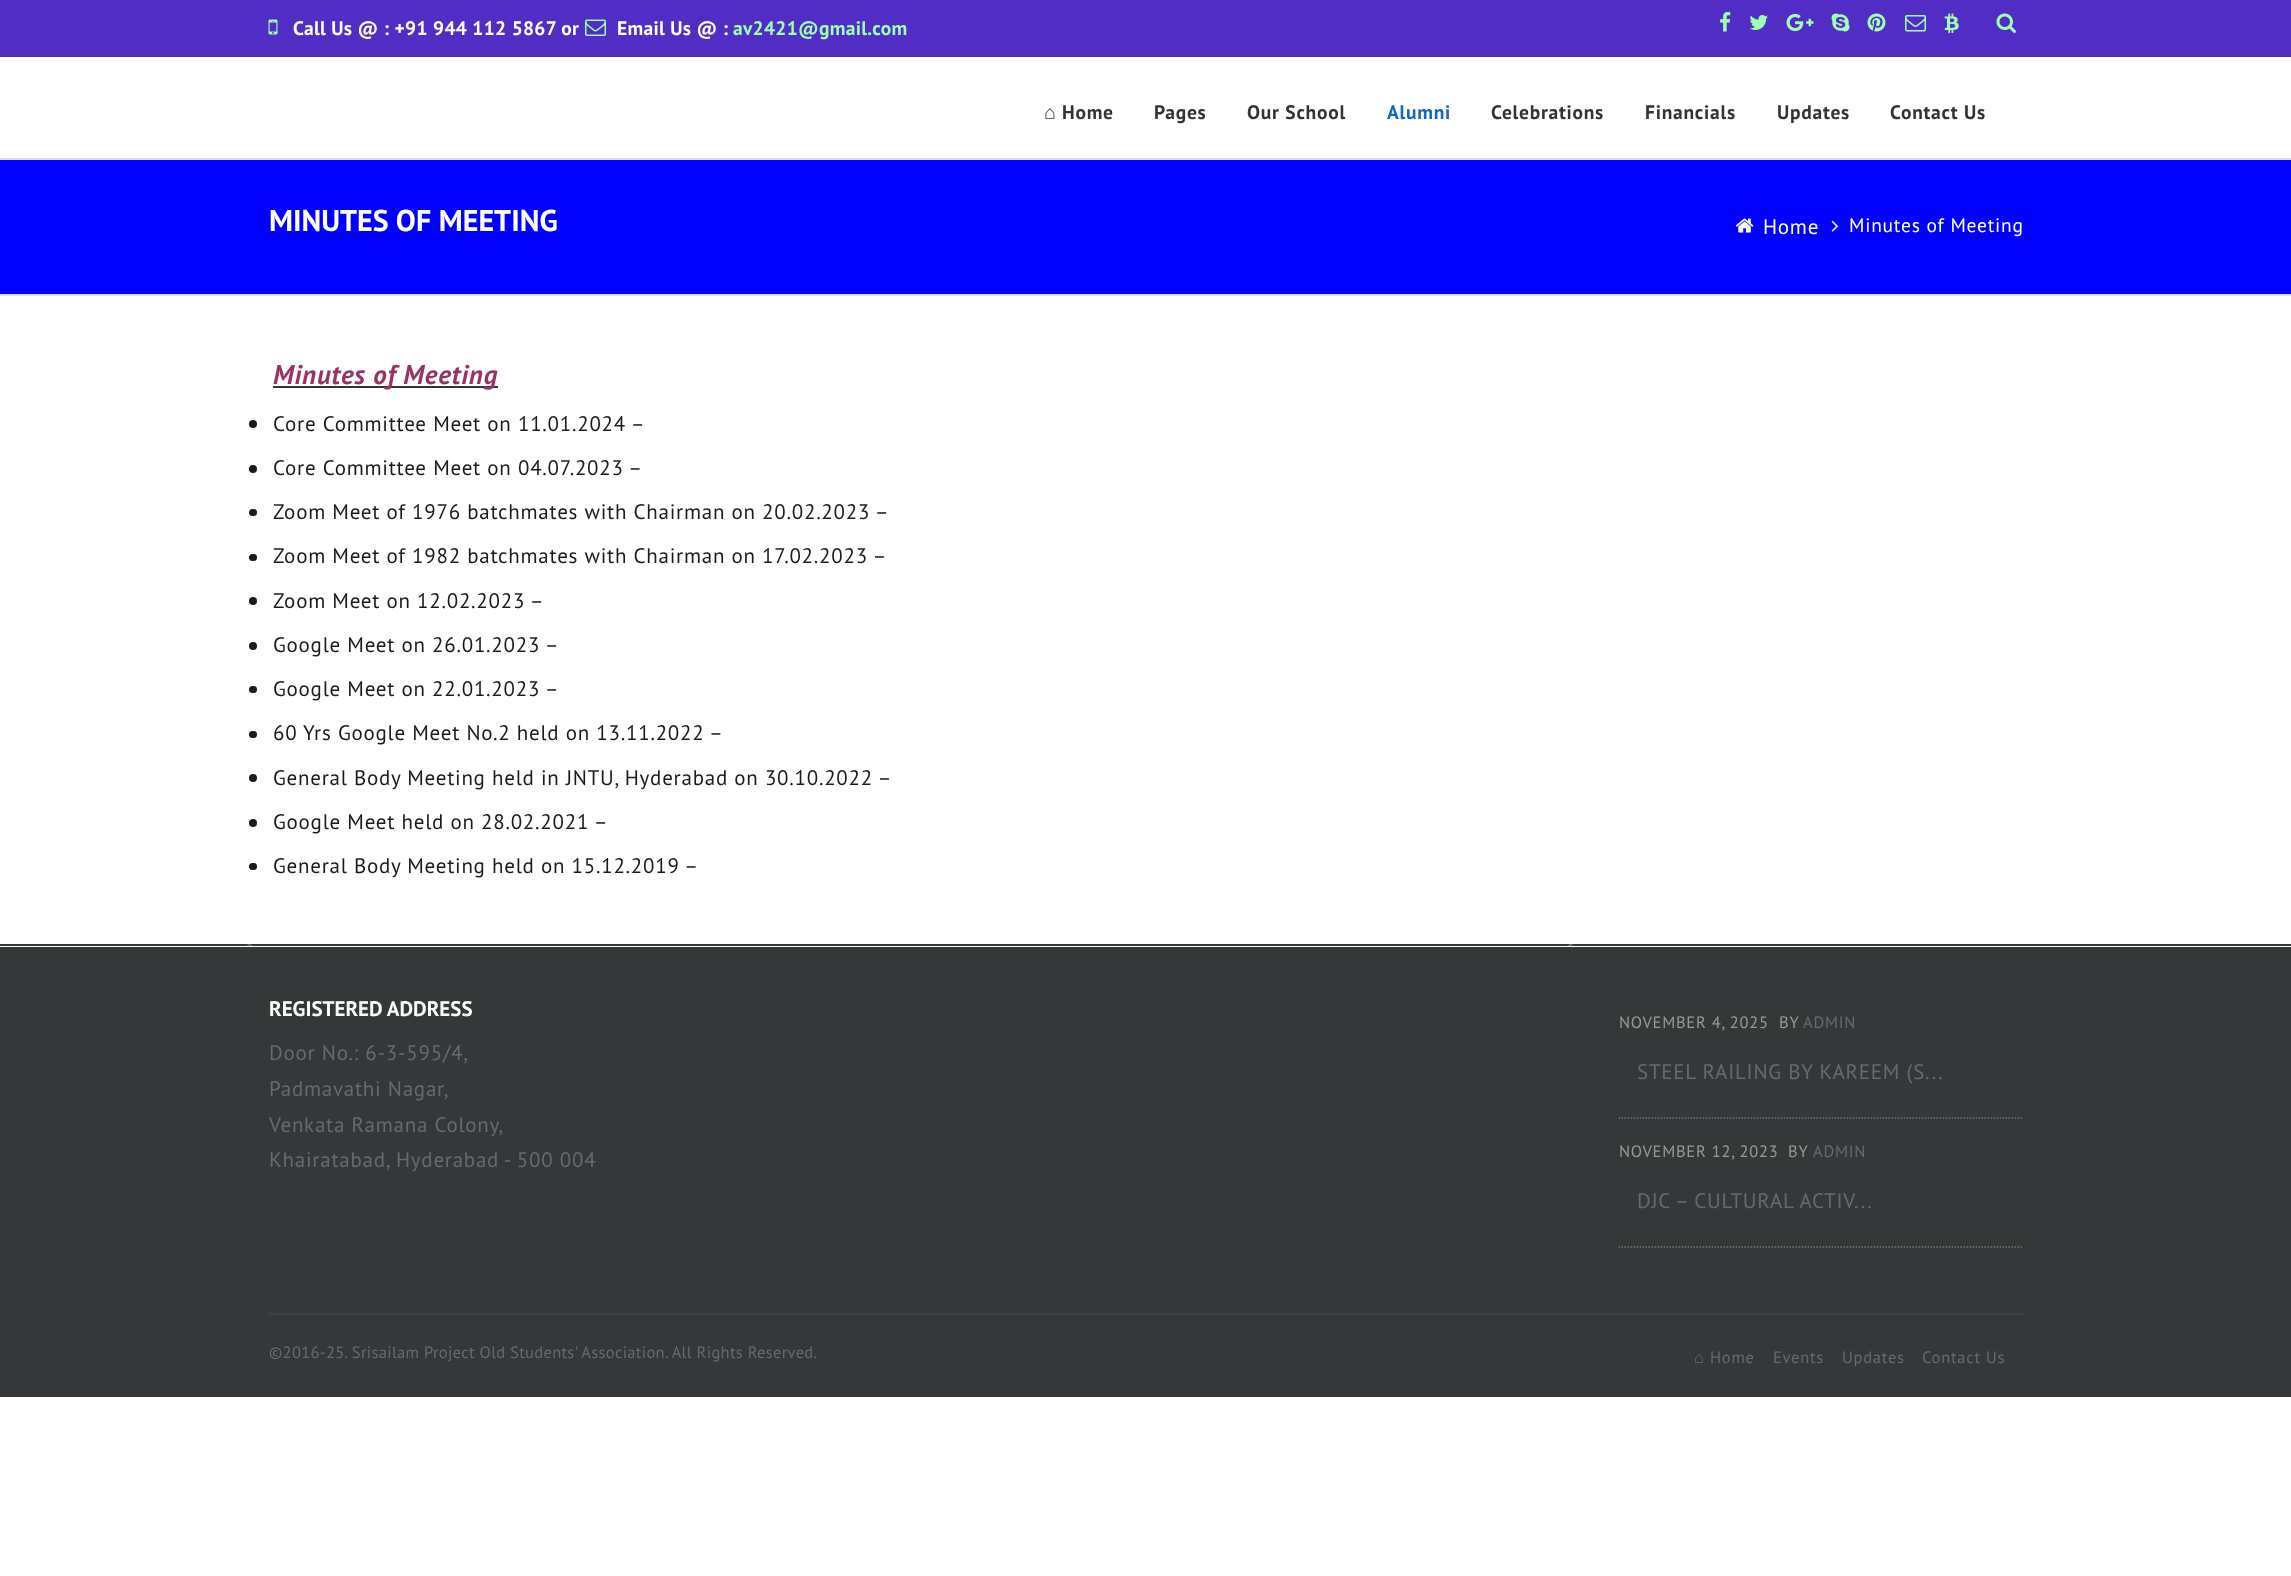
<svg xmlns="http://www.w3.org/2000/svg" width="2291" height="1576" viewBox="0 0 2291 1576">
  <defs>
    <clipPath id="clip1"><rect x="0" y="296" width="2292" height="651"/></clipPath>
    <clipPath id="clip2"><path d="M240 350H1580V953H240ZM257 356H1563C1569 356 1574 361 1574 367V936C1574 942 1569 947 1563 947H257C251 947 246 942 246 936V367C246 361 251 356 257 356Z" clip-rule="evenodd"/></clipPath>
    <filter id="blur1" x="-50%" y="-200%" width="200%" height="500%"><feGaussianBlur stdDeviation="1.5"/></filter>
  </defs>
  <rect width="100%" height="100%" fill="#ffffff"/>
  <rect x="0" y="0" width="2291" height="56" fill="#512dc6"/>
  <rect x="0" y="56" width="2291" height="1" fill="#4929b2"/>
  <image x="268" y="19" width="10" height="16" href="img1.png"/>
  <text x="293" y="35" font-family="PT Sans" font-size="19.5" font-weight="bold" letter-spacing="0.3" fill="#ffffff">Call Us @ : +91 944 112 5867 or</text>
  <image x="585" y="19" width="21" height="17" href="img2.png"/>
  <text x="617" y="35" font-family="PT Sans" font-size="19.5" font-weight="bold" letter-spacing="0.3" fill="#ffffff">Email Us @ :</text>
  <text x="733" y="35" font-family="PT Sans" font-size="19.5" font-weight="bold" letter-spacing="0.3" fill="#9ffeb0">av2421@gmail.com</text>
  <image x="1720" y="12" width="11" height="20" href="img3.png"/>
  <image x="1749" y="15" width="19" height="15" href="img4.png"/>
  <image x="1786" y="13" width="28" height="19" href="img5.png"/>
  <image x="1831" y="13" width="19" height="19" href="img6.png"/>
  <image x="1867" y="13" width="19" height="19" href="img7.png"/>
  <image x="1905" y="15" width="21" height="17" href="img8.png"/>
  <image x="1944" y="13" width="15" height="20" href="img9.png"/>
  <image x="1996" y="13" width="20" height="20" href="img10.png"/>
  <text x="1044" y="119" font-family="Liberation Sans" font-size="19.5" font-weight="bold" letter-spacing="0.75" fill="#333333">⌂</text>
  <text x="1062" y="119" font-family="PT Sans" font-size="19.5" font-weight="bold" letter-spacing="0.75" fill="#333333">Home</text>
  <text x="1154" y="119" font-family="PT Sans" font-size="19.5" font-weight="bold" letter-spacing="0.75" fill="#333333">Pages</text>
  <text x="1247" y="119" font-family="PT Sans" font-size="19.5" font-weight="bold" letter-spacing="0.75" fill="#333333">Our School</text>
  <text x="1387" y="119" font-family="PT Sans" font-size="19.5" font-weight="bold" letter-spacing="0.75" fill="#1564c0">Alumni</text>
  <text x="1491" y="119" font-family="PT Sans" font-size="19.5" font-weight="bold" letter-spacing="0.75" fill="#333333">Celebrations</text>
  <text x="1645" y="119" font-family="PT Sans" font-size="19.5" font-weight="bold" letter-spacing="0.75" fill="#333333">Financials</text>
  <text x="1777" y="119" font-family="PT Sans" font-size="19.5" font-weight="bold" letter-spacing="0.75" fill="#333333">Updates</text>
  <text x="1890" y="119" font-family="PT Sans" font-size="19.5" font-weight="bold" letter-spacing="0.75" fill="#333333">Contact Us</text>
  <rect x="0" y="160" width="2291" height="134" fill="#0000ff"/>
  <rect x="0" y="158" width="2291" height="2" fill="#e0e0e0"/>
  <rect x="0" y="294" width="2291" height="2" fill="#e0e0e0"/>
  <text x="269" y="231" font-family="PT Sans" font-size="30" font-weight="bold" fill="#ffffff">MINUTES OF MEETING</text>
  <image x="1735" y="218" width="19" height="15" href="img11.png"/>
  <text x="1763" y="234" font-family="PT Sans" font-size="21" letter-spacing="0.75" fill="#ffffff">Home</text>
  <image x="1831" y="220" width="7" height="12" href="img12.png"/>
  <text x="1849" y="232" font-family="PT Sans" font-size="19.5" letter-spacing="0.75" fill="#ffffff">Minutes of Meeting</text>
  <rect x="0" y="947" width="2291" height="450" fill="#353839"/>
  <rect x="0" y="944" width="2291" height="2" fill="#353839"/>
  <g clip-path="url(#clip1)">
    <g clip-path="url(#clip2)">
      <rect x="246" y="356" width="1328" height="591" rx="11" fill="#ffffff" filter="url(#blur1)"/>
    </g>
  </g>
  <rect x="273" y="386" width="225" height="2" fill="#333333"/>
  <text x="273" y="384" font-family="PT Sans" font-size="27" font-weight="bold" font-style="italic" letter-spacing="0.75" fill="#993366">Minutes of Meeting</text>
  <circle cx="253" cy="424" r="4" fill="#1b1a19"/>
  <text x="273" y="431" font-family="PT Sans" font-size="21" letter-spacing="0.75" fill="#1b1a19">Core Committee Meet on 11.01.2024 –</text>
  <circle cx="253" cy="469" r="4" fill="#1b1a19"/>
  <text x="273" y="475" font-family="PT Sans" font-size="21" letter-spacing="0.75" fill="#1b1a19">Core Committee Meet on 04.07.2023 –</text>
  <rect x="249" y="509" width="8" height="7" rx="3.5" fill="#1b1a19"/>
  <text x="273" y="519" font-family="PT Sans" font-size="21" letter-spacing="0.75" fill="#1b1a19">Zoom Meet of 1976 batchmates with Chairman on 20.02.2023 –</text>
  <rect x="249" y="554" width="8" height="7" rx="3.5" fill="#1b1a19"/>
  <text x="273" y="563" font-family="PT Sans" font-size="21" letter-spacing="0.75" fill="#1b1a19">Zoom Meet of 1982 batchmates with Chairman on 17.02.2023 –</text>
  <circle cx="253" cy="601" r="4" fill="#1b1a19"/>
  <text x="273" y="608" font-family="PT Sans" font-size="21" letter-spacing="0.75" fill="#1b1a19">Zoom Meet on 12.02.2023 –</text>
  <circle cx="253" cy="646" r="4" fill="#1b1a19"/>
  <text x="273" y="652" font-family="PT Sans" font-size="21" letter-spacing="0.75" fill="#1b1a19">Google Meet on 26.01.2023 –</text>
  <rect x="249" y="686" width="8" height="7" rx="3.5" fill="#1b1a19"/>
  <text x="273" y="696" font-family="PT Sans" font-size="21" letter-spacing="0.75" fill="#1b1a19">Google Meet on 22.01.2023 –</text>
  <rect x="249" y="731" width="8" height="7" rx="3.5" fill="#1b1a19"/>
  <text x="273" y="740" font-family="PT Sans" font-size="21" letter-spacing="0.75" fill="#1b1a19">60 Yrs Google Meet No.2 held on 13.11.2022 –</text>
  <circle cx="253" cy="778" r="4" fill="#1b1a19"/>
  <text x="273" y="785" font-family="PT Sans" font-size="21" letter-spacing="0.75" fill="#1b1a19">General Body Meeting held in JNTU, Hyderabad on 30.10.2022 –</text>
  <circle cx="253" cy="823" r="4" fill="#1b1a19"/>
  <text x="273" y="829" font-family="PT Sans" font-size="21" letter-spacing="0.75" fill="#1b1a19">Google Meet held on 28.02.2021 –</text>
  <rect x="249" y="863" width="8" height="7" rx="3.5" fill="#1b1a19"/>
  <text x="273" y="873" font-family="PT Sans" font-size="21" letter-spacing="0.75" fill="#1b1a19">General Body Meeting held on 15.12.2019 –</text>
  <text x="269" y="1016" font-family="PT Sans" font-size="21" font-weight="bold" fill="#ffffff">REGISTERED ADDRESS</text>
  <text x="269" y="1060" font-family="PT Sans" font-size="21" letter-spacing="0.75" fill="#656b6b">Door No.: 6-3-595/4,</text>
  <text x="269" y="1096" font-family="PT Sans" font-size="21" letter-spacing="0.75" fill="#656b6b">Padmavathi Nagar,</text>
  <text x="269" y="1132" font-family="PT Sans" font-size="21" letter-spacing="0.75" fill="#656b6b">Venkata Ramana Colony,</text>
  <text x="269" y="1167" font-family="PT Sans" font-size="21" letter-spacing="0.75" fill="#656b6b">Khairatabad, Hyderabad - 500 004</text>
  <path d="M1618.5 1118H2023.5" fill="none" stroke="#727474" stroke-width="1.5" stroke-dasharray="1.5 1.5"/>
  <text x="1619" y="1028" font-family="PT Sans" font-size="16.5" letter-spacing="0.75" fill="#999999">NOVEMBER 4, 2025</text>
  <text x="1779" y="1028" font-family="PT Sans" font-size="16.5" letter-spacing="0.75" fill="#999999">BY</text>
  <text x="1803" y="1028" font-family="PT Sans" font-size="16.5" letter-spacing="0.75" fill="#656b6b">ADMIN</text>
  <text x="1637" y="1079" font-family="PT Sans" font-size="21" letter-spacing="0.75" fill="#656b6b">STEEL RAILING BY KAREEM (S...</text>
  <path d="M1618.5 1247H2023.5" fill="none" stroke="#727474" stroke-width="1.5" stroke-dasharray="1.5 1.5"/>
  <text x="1619" y="1157" font-family="PT Sans" font-size="16.5" letter-spacing="0.75" fill="#999999">NOVEMBER 12, 2023</text>
  <text x="1788" y="1157" font-family="PT Sans" font-size="16.5" letter-spacing="0.75" fill="#999999">BY</text>
  <text x="1813" y="1157" font-family="PT Sans" font-size="16.5" letter-spacing="0.75" fill="#656b6b">ADMIN</text>
  <text x="1637" y="1208" font-family="PT Sans" font-size="21" letter-spacing="0.75" fill="#656b6b">DJC – CULTURAL ACTIV...</text>
  <rect x="269" y="1313" width="1755" height="2" fill="#3f4243"/>
  <text x="269" y="1358" font-family="PT Sans" font-size="16.5" letter-spacing="0.3" fill="#656b6b">©2016-25. Srisailam Project Old Students' Association. All Rights Reserved.</text>
  <text x="1694" y="1363" font-family="Liberation Sans" font-size="16.5" letter-spacing="0.75" fill="#656b6b">⌂</text>
  <text x="1710" y="1363" font-family="PT Sans" font-size="16.5" letter-spacing="0.75" fill="#656b6b">Home</text>
  <text x="1773" y="1363" font-family="PT Sans" font-size="16.5" letter-spacing="0.75" fill="#656b6b">Events</text>
  <text x="1842" y="1363" font-family="PT Sans" font-size="16.5" letter-spacing="0.75" fill="#656b6b">Updates</text>
  <text x="1922" y="1363" font-family="PT Sans" font-size="16.5" letter-spacing="0.75" fill="#656b6b">Contact Us</text>
</svg>
